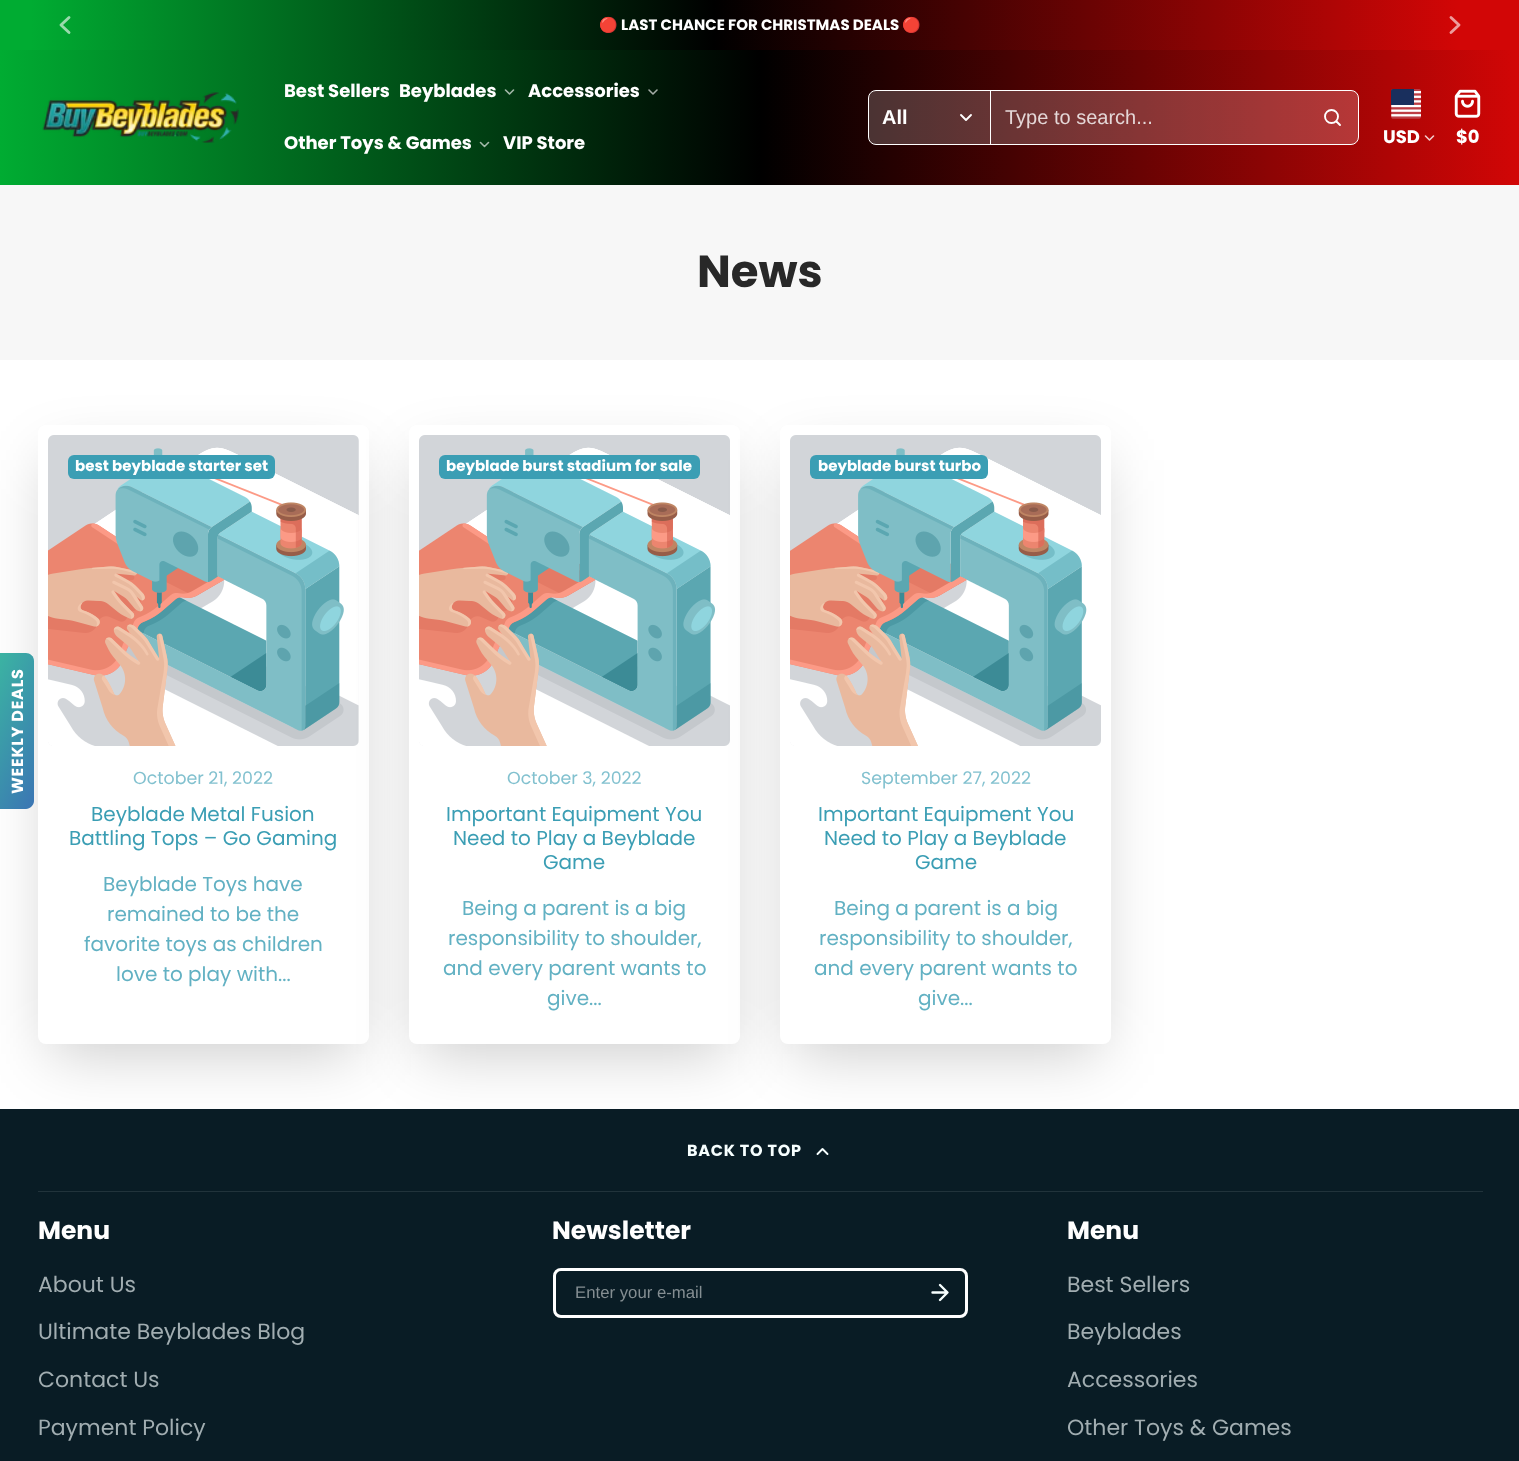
<svg xmlns="http://www.w3.org/2000/svg" width="1519" height="1461" viewBox="0 0 1519 1461">
  <defs>
    <linearGradient id="g1" gradientUnits="userSpaceOnUse" x1="0" y1="25" x2="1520" y2="25"><stop offset="0.02" stop-color="#00ac32"/><stop offset="0.47" stop-color="#000000"/><stop offset="0.96" stop-color="#d20606"/></linearGradient>
    <linearGradient id="g2" gradientUnits="userSpaceOnUse" x1="0" y1="118" x2="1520" y2="117"><stop offset="0" stop-color="#00ac32"/><stop offset="0.5" stop-color="#000000"/><stop offset="1" stop-color="#d20606"/></linearGradient>
    <filter id="blur1" x="-50%" y="-200%" width="200%" height="500%"><feGaussianBlur stdDeviation="31"/></filter>
    <linearGradient id="g3" gradientUnits="userSpaceOnUse" x1="61" y1="751" x2="-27" y2="710"><stop offset="0" stop-color="#3b75b4"/><stop offset="1" stop-color="#3bb4a2"/></linearGradient>
  </defs>
  <rect width="100%" height="100%" fill="#ffffff"/>
  <rect x="0" y="0" width="1519" height="50" fill="url(#g1)"/>
  <path d="M69 32.5L61 25L69 17.5" fill="none" stroke="#99daac" stroke-width="2.9" stroke-linecap="round" stroke-linejoin="round"/>
  <text x="599" y="30" font-family="Noto Color Emoji" font-size="15" font-weight="bold" fill="#ffffff">🔴</text>
  <text x="621" y="30" font-family="Poppins" font-size="15" font-weight="bold" fill="#ffffff">LAST CHANCE FOR CHRISTMAS DEALS</text>
  <text x="902" y="30" font-family="Noto Color Emoji" font-size="15" font-weight="bold" fill="#ffffff">🔴</text>
  <path d="M1451 32.5L1459 25L1451 17.5" fill="none" stroke="#ed9b9b" stroke-width="2.9" stroke-linecap="round" stroke-linejoin="round"/>
  <rect x="0" y="50" width="1519" height="135" fill="url(#g2)"/>
  <image x="42" y="92" width="197" height="51" href="img1.png"/>
  <text x="284" y="97" font-family="Poppins" font-size="18" font-weight="bold" fill="#ffffff">Best Sellers</text>
  <text x="399" y="97" font-family="Poppins" font-size="18" font-weight="bold" fill="#ffffff">Beyblades</text>
  <path d="M505.5 90L509.5 94L513.5 90" fill="none" stroke="#a3b8a9" stroke-width="1.6" stroke-linecap="round" stroke-linejoin="round"/>
  <text x="528" y="97" font-family="Poppins" font-size="18" font-weight="bold" fill="#ffffff">Accessories</text>
  <path d="M649 90L653 94L657 90" fill="none" stroke="#a3aca6" stroke-width="1.6" stroke-linecap="round" stroke-linejoin="round"/>
  <text x="284" y="149" font-family="Poppins" font-size="18" font-weight="bold" fill="#ffffff">Other Toys &amp; Games</text>
  <path d="M480.5 142.5L484.5 146.5L488.5 142.5" fill="none" stroke="#a3baaa" stroke-width="1.6" stroke-linecap="round" stroke-linejoin="round"/>
  <text x="503" y="149" font-family="Poppins" font-size="18" font-weight="bold" fill="#ffffff">VIP Store</text>
  <rect x="868.5" y="90.5" width="490" height="54" rx="7.5" fill="#ffffff" fill-opacity="0.2" stroke="#ffffff"/>
  <rect x="990" y="91" width="1" height="53" fill="#ffffff"/>
  <text x="882" y="124" font-family="Liberation Sans" font-size="20" font-weight="bold" fill="#ffffff">All</text>
  <path d="M961 115L966 120L971 115" fill="none" stroke="#ffffff" stroke-width="1.9" stroke-linecap="round" stroke-linejoin="round"/>
  <text x="1005" y="124" font-family="Liberation Sans" font-size="20" fill="#e4d7d7">Type to search...</text>
  <circle cx="1331.5" cy="116.5" r="6.5" fill="none" stroke="#ffffff" stroke-width="1.9"/>
  <path d="M1340 125L1336.5 121.5" fill="none" stroke="#ffffff" stroke-width="1.9" stroke-linecap="round" stroke-linejoin="round"/>
  <image x="1391" y="89" width="30" height="30" href="img2.png"/>
  <text x="1383" y="143" font-family="Poppins" font-size="18" font-weight="bold" fill="#ffffff">USD</text>
  <path d="M1425.5 136L1429.5 140L1433.5 136" fill="none" stroke="#f1cdcd" stroke-width="1.6" stroke-linecap="round" stroke-linejoin="round"/>
  <image x="1454" y="89" width="27" height="29" href="img3.png"/>
  <text x="1456" y="143" font-family="Poppins" font-size="18" font-weight="bold" fill="#ffffff">$0</text>
  <rect x="50" y="460" width="306" height="594" fill="#000000" fill-opacity="0.2" filter="url(#blur1)"/>
  <path d="M26 809H0V653H26C30 653 34 656 34 661V801C34 805 30 809 26 809Z" fill="url(#g3)"/>
  <text x="23" y="794" transform="rotate(-90 23 794)" font-family="Poppins" font-size="16" font-weight="bold" letter-spacing="0.75" fill="#ffffff">WEEKLY DEALS</text>
  <rect x="0" y="185" width="1519" height="175" fill="#f7f7f7"/>
  <text x="697" y="287" font-family="Poppins" font-size="45" font-weight="bold" fill="#282828">News</text>
  <rect x="38" y="425" width="331" height="619" rx="8" fill="#ffffff"/>
  <image x="48" y="435" width="311" height="311" href="img4.png"/>
  <rect x="68" y="455" width="207" height="24" rx="6" fill="#3b9eb4"/>
  <text x="75" y="471" font-family="Poppins" font-size="15" font-weight="bold" fill="#ffffff">best beyblade starter set</text>
  <text x="133" y="784" font-family="Poppins" font-size="17.4" fill="#82c1cf">October 21, 2022</text>
  <text x="91" y="821" font-family="Poppins" font-size="20" fill="#3b9eb4">Beyblade Metal Fusion</text>
  <text x="69" y="845" font-family="Poppins" font-size="20" fill="#3b9eb4">Battling Tops – Go Gaming</text>
  <text x="103" y="891" font-family="Poppins" font-size="20" fill="#62b1c3">Beyblade Toys have</text>
  <text x="107" y="921" font-family="Poppins" font-size="20" fill="#62b1c3">remained to be the</text>
  <text x="84" y="951" font-family="Poppins" font-size="20" fill="#62b1c3">favorite toys as children</text>
  <text x="116" y="981" font-family="Poppins" font-size="20" fill="#62b1c3">love to play with...</text>
  <rect x="421" y="460" width="307" height="594" fill="#000000" fill-opacity="0.2" filter="url(#blur1)"/>
  <rect x="409" y="425" width="331" height="619" rx="8" fill="#ffffff"/>
  <image x="419" y="435" width="311" height="311" href="img5.png"/>
  <rect x="793" y="460" width="306" height="594" fill="#000000" fill-opacity="0.2" filter="url(#blur1)"/>
  <rect x="439" y="455" width="261" height="24" rx="6" fill="#3b9eb4"/>
  <text x="446" y="471" font-family="Poppins" font-size="15" font-weight="bold" fill="#ffffff">beyblade burst stadium for sale</text>
  <text x="507" y="784" font-family="Poppins" font-size="17.4" fill="#82c1cf">October 3, 2022</text>
  <text x="446" y="821" font-family="Poppins" font-size="20" fill="#3b9eb4">Important Equipment You</text>
  <text x="453" y="845" font-family="Poppins" font-size="20" fill="#3b9eb4">Need to Play a Beyblade</text>
  <text x="543" y="869" font-family="Poppins" font-size="20" fill="#3b9eb4">Game</text>
  <text x="462" y="915" font-family="Poppins" font-size="20" fill="#62b1c3">Being a parent is a big</text>
  <text x="448" y="945" font-family="Poppins" font-size="20" fill="#62b1c3">responsibility to shoulder,</text>
  <text x="443" y="975" font-family="Poppins" font-size="20" fill="#62b1c3">and every parent wants to</text>
  <text x="547" y="1005" font-family="Poppins" font-size="20" fill="#62b1c3">give...</text>
  <rect x="780" y="425" width="331" height="619" rx="8" fill="#ffffff"/>
  <image x="790" y="435" width="311" height="311" href="img6.png"/>
  <rect x="810" y="455" width="178" height="24" rx="6" fill="#3b9eb4"/>
  <text x="818" y="471" font-family="Poppins" font-size="15" font-weight="bold" fill="#ffffff">beyblade burst turbo</text>
  <text x="861" y="784" font-family="Poppins" font-size="17.4" fill="#82c1cf">September 27, 2022</text>
  <text x="818" y="821" font-family="Poppins" font-size="20" fill="#3b9eb4">Important Equipment You</text>
  <text x="824" y="845" font-family="Poppins" font-size="20" fill="#3b9eb4">Need to Play a Beyblade</text>
  <text x="915" y="869" font-family="Poppins" font-size="20" fill="#3b9eb4">Game</text>
  <text x="834" y="915" font-family="Poppins" font-size="20" fill="#62b1c3">Being a parent is a big</text>
  <text x="819" y="945" font-family="Poppins" font-size="20" fill="#62b1c3">responsibility to shoulder,</text>
  <text x="814" y="975" font-family="Poppins" font-size="20" fill="#62b1c3">and every parent wants to</text>
  <text x="918" y="1005" font-family="Poppins" font-size="20" fill="#62b1c3">give...</text>
  <rect x="0" y="1109" width="1519" height="352" fill="#091c25"/>
  <text x="687" y="1156" font-family="Poppins" font-size="16" font-weight="bold" letter-spacing="0.75" fill="#f7ffff">BACK TO TOP</text>
  <path d="M827.5 1154L822.5 1149L817.5 1154" fill="none" stroke="#f7ffff" stroke-width="1.9" stroke-linecap="round" stroke-linejoin="round"/>
  <rect x="38" y="1191" width="1445" height="1" fill="#21333b"/>
  <text x="38" y="1239" font-family="Poppins" font-size="25" font-weight="bold" fill="#ffffff">Menu</text>
  <text x="38" y="1292" font-family="Poppins" font-size="22" fill="#a1adb1">About Us</text>
  <text x="38" y="1339" font-family="Poppins" font-size="22" fill="#a1adb1">Ultimate Beyblades Blog</text>
  <text x="38" y="1387" font-family="Poppins" font-size="22" fill="#a1adb1">Contact Us</text>
  <text x="38" y="1435" font-family="Poppins" font-size="22" fill="#a1adb1">Payment Policy</text>
  <text x="552" y="1239" font-family="Poppins" font-size="25" font-weight="bold" fill="#ffffff">Newsletter</text>
  <rect x="554.5" y="1269.5" width="412" height="47" rx="6.5" fill="none" stroke="#ffffff" stroke-width="3"/>
  <text x="575" y="1298" font-family="Liberation Sans" font-size="16.75" fill="#848e92">Enter your e-mail</text>
  <path d="M932.5 1292.5H946M940 1285L947.5 1292.5L940 1300" fill="none" stroke="#f7ffff" stroke-width="2.4" stroke-linecap="round" stroke-linejoin="round"/>
  <text x="1067" y="1239" font-family="Poppins" font-size="25" font-weight="bold" fill="#ffffff">Menu</text>
  <text x="1067" y="1292" font-family="Poppins" font-size="22" fill="#a1adb1">Best Sellers</text>
  <text x="1067" y="1339" font-family="Poppins" font-size="22" fill="#a1adb1">Beyblades</text>
  <text x="1067" y="1387" font-family="Poppins" font-size="22" fill="#a1adb1">Accessories</text>
  <text x="1067" y="1435" font-family="Poppins" font-size="22" fill="#a1adb1">Other Toys &amp; Games</text>
</svg>
